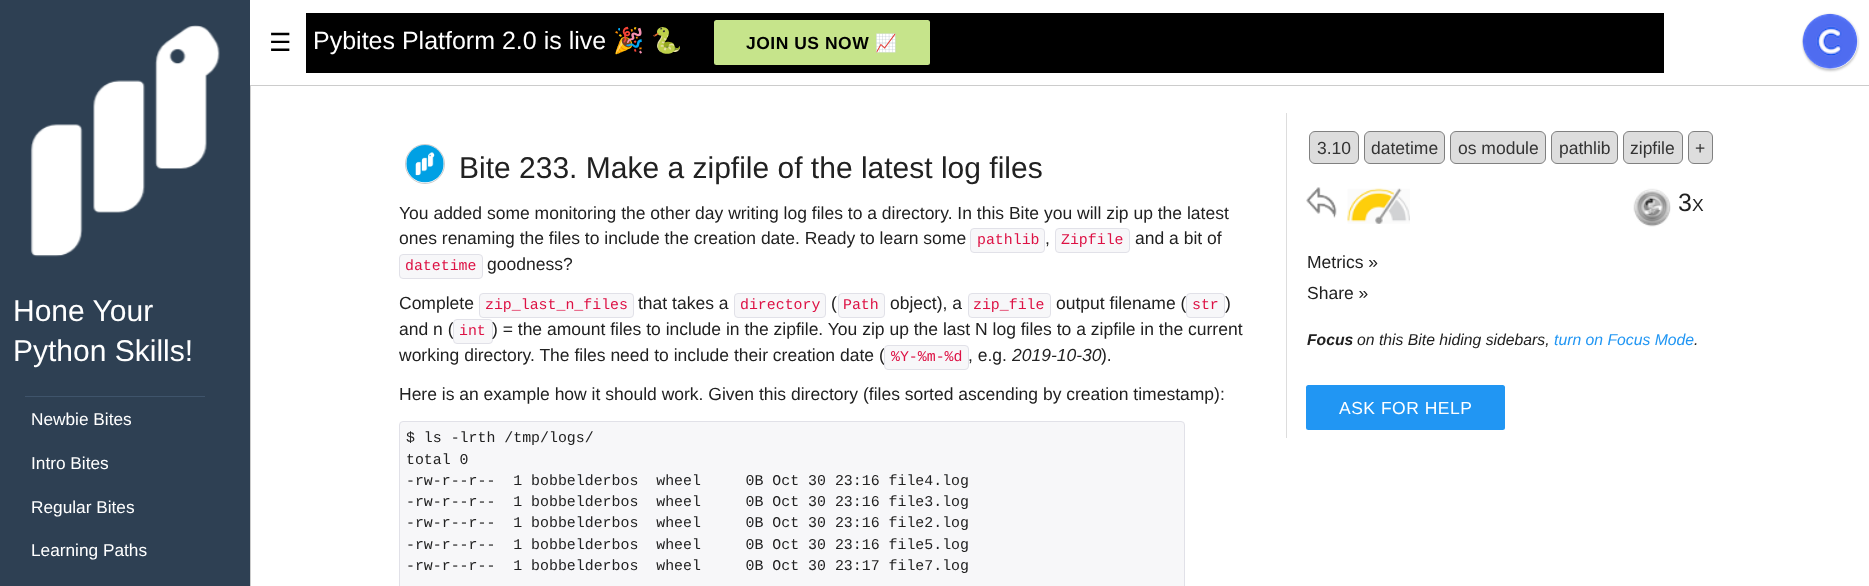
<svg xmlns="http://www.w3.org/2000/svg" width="1869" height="586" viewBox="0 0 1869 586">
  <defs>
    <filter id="blur1" x="-50%" y="-200%" width="200%" height="500%"><feGaussianBlur stdDeviation="1"/></filter>
  </defs>
  <rect width="100%" height="100%" fill="#ffffff"/>
  <rect x="250" y="85" width="1619" height="1" fill="#cccccc"/>
  <text x="269" y="51" font-family="DejaVu Sans" font-size="25" fill="#000000">☰</text>
  <rect x="306" y="13" width="1358" height="60" fill="#000000"/>
  <text x="313" y="49" font-family="Liberation Sans" font-size="25" fill="#ffffff">Pybites Platform 2.0 is live</text>
  <text x="613" y="49" font-family="Noto Color Emoji" font-size="25" fill="#ffffff">🎉</text>
  <text x="651" y="49" font-family="Noto Color Emoji" font-size="25" fill="#ffffff">🐍</text>
  <rect x="714" y="20" width="216" height="45" rx="2.5" fill="#c6e48b"/>
  <text x="746" y="49" font-family="Liberation Sans" font-size="17.5" font-weight="bold" letter-spacing="0.5" fill="#000000">JOIN US NOW</text>
  <text x="875" y="49" font-family="Noto Color Emoji" font-size="17.5" font-weight="bold" letter-spacing="0.5" fill="#000000">📈</text>
  <rect x="1803" y="16" width="55" height="55" rx="27.5" fill="#000000" fill-opacity="0.2" filter="url(#blur1)"/>
  <rect x="1803" y="14" width="55" height="55" rx="27.5" fill="#000000" fill-opacity="0.12" filter="url(#blur1)"/>
  <circle cx="1830.5" cy="41.5" r="27.5" fill="#ffffff"/>
  <image x="1802" y="13" width="56" height="56" href="img1.png"/>
  <rect x="0" y="0" width="250" height="586" fill="#2e4053"/>
  <rect x="250" y="86" width="1" height="500" fill="#cccccc"/>
  <image x="30" y="25" width="190" height="232" href="img2.png"/>
  <text x="13" y="321" font-family="Liberation Sans" font-size="30" fill="#ffffff">Hone Your</text>
  <text x="13" y="361" font-family="Liberation Sans" font-size="30" fill="#ffffff">Python Skills!</text>
  <rect x="25" y="396" width="180" height="1" fill="#3f546b"/>
  <text x="31" y="425" font-family="Liberation Sans" font-size="17.25" fill="#ffffff">Newbie Bites</text>
  <text x="31" y="469" font-family="Liberation Sans" font-size="17.25" fill="#ffffff">Intro Bites</text>
  <text x="31" y="513" font-family="Liberation Sans" font-size="17.25" fill="#ffffff">Regular Bites</text>
  <text x="31" y="556" font-family="Liberation Sans" font-size="17.25" fill="#ffffff">Learning Paths</text>
  <circle cx="425" cy="164" r="19.5" fill="none" stroke="#cccccc"/>
  <image x="406" y="145" width="38" height="38" href="img3.png"/>
  <text x="459" y="178" font-family="Liberation Sans" font-size="30" fill="#212121">Bite 233. Make a zipfile of the latest log files</text>
  <text x="399" y="219" font-family="Liberation Sans" font-size="17.5" fill="#212121">You added some monitoring the other day writing log files to a directory. In this Bite you will zip up the latest</text>
  <text x="399" y="244" font-family="Liberation Sans" font-size="17.5" fill="#212121">ones renaming the files to include the creation date. Ready to learn some</text>
  <rect x="970.5" y="228.5" width="74" height="24" rx="3.5" fill="#f7f7f9" stroke="#e1e1e8"/>
  <text x="977" y="244" font-family="Liberation Mono" font-size="14.9" fill="#dd1144">pathlib</text>
  <text x="1045" y="244" font-family="Liberation Sans" font-size="17.5" fill="#212121">,</text>
  <rect x="1055.5" y="228.5" width="74" height="24" rx="3.5" fill="#f7f7f9" stroke="#e1e1e8"/>
  <text x="1061" y="244" font-family="Liberation Mono" font-size="14.9" fill="#dd1144">Zipfile</text>
  <text x="1135" y="244" font-family="Liberation Sans" font-size="17.5" fill="#212121">and a bit of</text>
  <rect x="399.5" y="254.5" width="83" height="24" rx="3.5" fill="#f7f7f9" stroke="#e1e1e8"/>
  <text x="405" y="270" font-family="Liberation Mono" font-size="14.9" fill="#dd1144">datetime</text>
  <text x="487" y="270" font-family="Liberation Sans" font-size="17.5" fill="#212121">goodness?</text>
  <text x="399" y="309" font-family="Liberation Sans" font-size="17.5" fill="#212121">Complete</text>
  <rect x="479.5" y="293.5" width="154" height="24" rx="3.5" fill="#f7f7f9" stroke="#e1e1e8"/>
  <text x="485" y="309" font-family="Liberation Mono" font-size="14.9" fill="#dd1144">zip_last_n_files</text>
  <text x="638" y="309" font-family="Liberation Sans" font-size="17.5" fill="#212121">that takes a</text>
  <rect x="734.5" y="293.5" width="91" height="24" rx="3.5" fill="#f7f7f9" stroke="#e1e1e8"/>
  <text x="740" y="309" font-family="Liberation Mono" font-size="14.9" fill="#dd1144">directory</text>
  <text x="831" y="309" font-family="Liberation Sans" font-size="17.5" fill="#212121">(</text>
  <rect x="838.5" y="293.5" width="46" height="24" rx="3.5" fill="#f7f7f9" stroke="#e1e1e8"/>
  <text x="843" y="309" font-family="Liberation Mono" font-size="14.9" fill="#dd1144">Path</text>
  <text x="890" y="309" font-family="Liberation Sans" font-size="17.5" fill="#212121">object), a</text>
  <rect x="968.5" y="293.5" width="82" height="24" rx="3.5" fill="#f7f7f9" stroke="#e1e1e8"/>
  <text x="973" y="309" font-family="Liberation Mono" font-size="14.9" fill="#dd1144">zip_file</text>
  <text x="1056" y="309" font-family="Liberation Sans" font-size="17.5" fill="#212121">output filename (</text>
  <rect x="1186.5" y="293.5" width="38" height="24" rx="3.5" fill="#f7f7f9" stroke="#e1e1e8"/>
  <text x="1192" y="309" font-family="Liberation Mono" font-size="14.9" fill="#dd1144">str</text>
  <text x="1225" y="309" font-family="Liberation Sans" font-size="17.5" fill="#212121">)</text>
  <text x="399" y="335" font-family="Liberation Sans" font-size="17.5" fill="#212121">and n (</text>
  <rect x="453.5" y="319.5" width="39" height="24" rx="3.5" fill="#f7f7f9" stroke="#e1e1e8"/>
  <text x="459" y="335" font-family="Liberation Mono" font-size="14.9" fill="#dd1144">int</text>
  <text x="492" y="335" font-family="Liberation Sans" font-size="17.5" fill="#212121">) = the amount files to include in the zipfile. You zip up the last N log files to a zipfile in the current</text>
  <text x="399" y="361" font-family="Liberation Sans" font-size="17.5" fill="#212121">working directory. The files need to include their creation date (</text>
  <rect x="884.5" y="345.5" width="84" height="24" rx="3.5" fill="#f7f7f9" stroke="#e1e1e8"/>
  <text x="891" y="361" font-family="Liberation Mono" font-size="14.9" fill="#dd1144">%Y-%m-%d</text>
  <text x="968" y="361" font-family="Liberation Sans" font-size="17.5" fill="#212121">, e.g.</text>
  <text x="1012" y="361" font-family="Liberation Sans" font-size="17.5" font-style="italic" fill="#212121">2019-10-30</text>
  <text x="1101" y="361" font-family="Liberation Sans" font-size="17.5" fill="#212121">).</text>
  <text x="399" y="400" font-family="Liberation Sans" font-size="17.5" fill="#212121">Here is an example how it should work. Given this directory (files sorted ascending by creation timestamp):</text>
  <rect x="399.5" y="421.5" width="785" height="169" rx="3.5" fill="#f7f7f9" stroke="#e1e1e8"/>
  <text x="406" y="442" font-family="Liberation Mono" font-size="14.9" fill="#212121">$ ls -lrth /tmp/logs/</text>
  <text x="406" y="464" font-family="Liberation Mono" font-size="14.9" fill="#212121">total 0</text>
  <text x="406" y="485" font-family="Liberation Mono" font-size="14.9" fill="#212121" xml:space="preserve">-rw-r--r--  1 bobbelderbos  wheel     0B Oct 30 23:16 file4.log</text>
  <text x="406" y="506" font-family="Liberation Mono" font-size="14.9" fill="#212121" xml:space="preserve">-rw-r--r--  1 bobbelderbos  wheel     0B Oct 30 23:16 file3.log</text>
  <text x="406" y="527" font-family="Liberation Mono" font-size="14.9" fill="#212121" xml:space="preserve">-rw-r--r--  1 bobbelderbos  wheel     0B Oct 30 23:16 file2.log</text>
  <text x="406" y="549" font-family="Liberation Mono" font-size="14.9" fill="#212121" xml:space="preserve">-rw-r--r--  1 bobbelderbos  wheel     0B Oct 30 23:16 file5.log</text>
  <text x="406" y="570" font-family="Liberation Mono" font-size="14.9" fill="#212121" xml:space="preserve">-rw-r--r--  1 bobbelderbos  wheel     0B Oct 30 23:17 file7.log</text>
  <rect x="1286" y="113" width="1" height="325" fill="#dddddd"/>
  <rect x="1309.5" y="131.5" width="49" height="32" rx="5.5" fill="#dddddd" stroke="#808080"/>
  <text x="1317" y="154" font-family="Liberation Sans" font-size="17.5" fill="#333333">3.10</text>
  <rect x="1364.5" y="131.5" width="80" height="32" rx="5.5" fill="#dddddd" stroke="#808080"/>
  <text x="1371" y="154" font-family="Liberation Sans" font-size="17.5" fill="#333333">datetime</text>
  <rect x="1450.5" y="131.5" width="95" height="32" rx="5.5" fill="#dddddd" stroke="#808080"/>
  <text x="1458" y="154" font-family="Liberation Sans" font-size="17.5" fill="#333333">os module</text>
  <rect x="1551.5" y="131.5" width="66" height="32" rx="5.5" fill="#dddddd" stroke="#808080"/>
  <text x="1559" y="154" font-family="Liberation Sans" font-size="17.5" fill="#333333">pathlib</text>
  <rect x="1623.5" y="131.5" width="59" height="32" rx="5.5" fill="#dddddd" stroke="#808080"/>
  <text x="1630" y="154" font-family="Liberation Sans" font-size="17.5" fill="#333333">zipfile</text>
  <rect x="1688.5" y="131.5" width="24" height="32" rx="5.5" fill="#dddddd" stroke="#808080"/>
  <text x="1695" y="154" font-family="Liberation Sans" font-size="17.5" fill="#333333">+</text>
  <image x="1306" y="187" width="31" height="31" href="img4.png"/>
  <image x="1347" y="188" width="63" height="36" href="img5.png"/>
  <image x="1633" y="188" width="38" height="39" href="img6.png"/>
  <text x="1678" y="211" font-family="Liberation Sans" font-size="25" fill="#212121">3</text>
  <text x="1692" y="211" font-family="Liberation Sans" font-size="17.5" fill="#212121">X</text>
  <text x="1307" y="268" font-family="Liberation Sans" font-size="17.5" fill="#212121">Metrics »</text>
  <text x="1307" y="299" font-family="Liberation Sans" font-size="17.5" fill="#212121">Share »</text>
  <text x="1307" y="345" font-family="Liberation Sans" font-size="15.75" font-weight="bold" font-style="italic" fill="#212121">Focus</text>
  <text x="1357" y="345" font-family="Liberation Sans" font-size="15.75" font-style="italic" fill="#212121">on this Bite hiding sidebars,</text>
  <text x="1554" y="345" font-family="Liberation Sans" font-size="15.75" font-style="italic" fill="#2196f3">turn on Focus Mode</text>
  <text x="1694" y="345" font-family="Liberation Sans" font-size="15.75" font-style="italic" fill="#212121">.</text>
  <rect x="1306" y="385" width="199" height="45" rx="2.5" fill="#2196f3"/>
  <text x="1339" y="414" font-family="Liberation Sans" font-size="17.5" letter-spacing="0.5" fill="#ffffff">ASK FOR HELP</text>
</svg>
